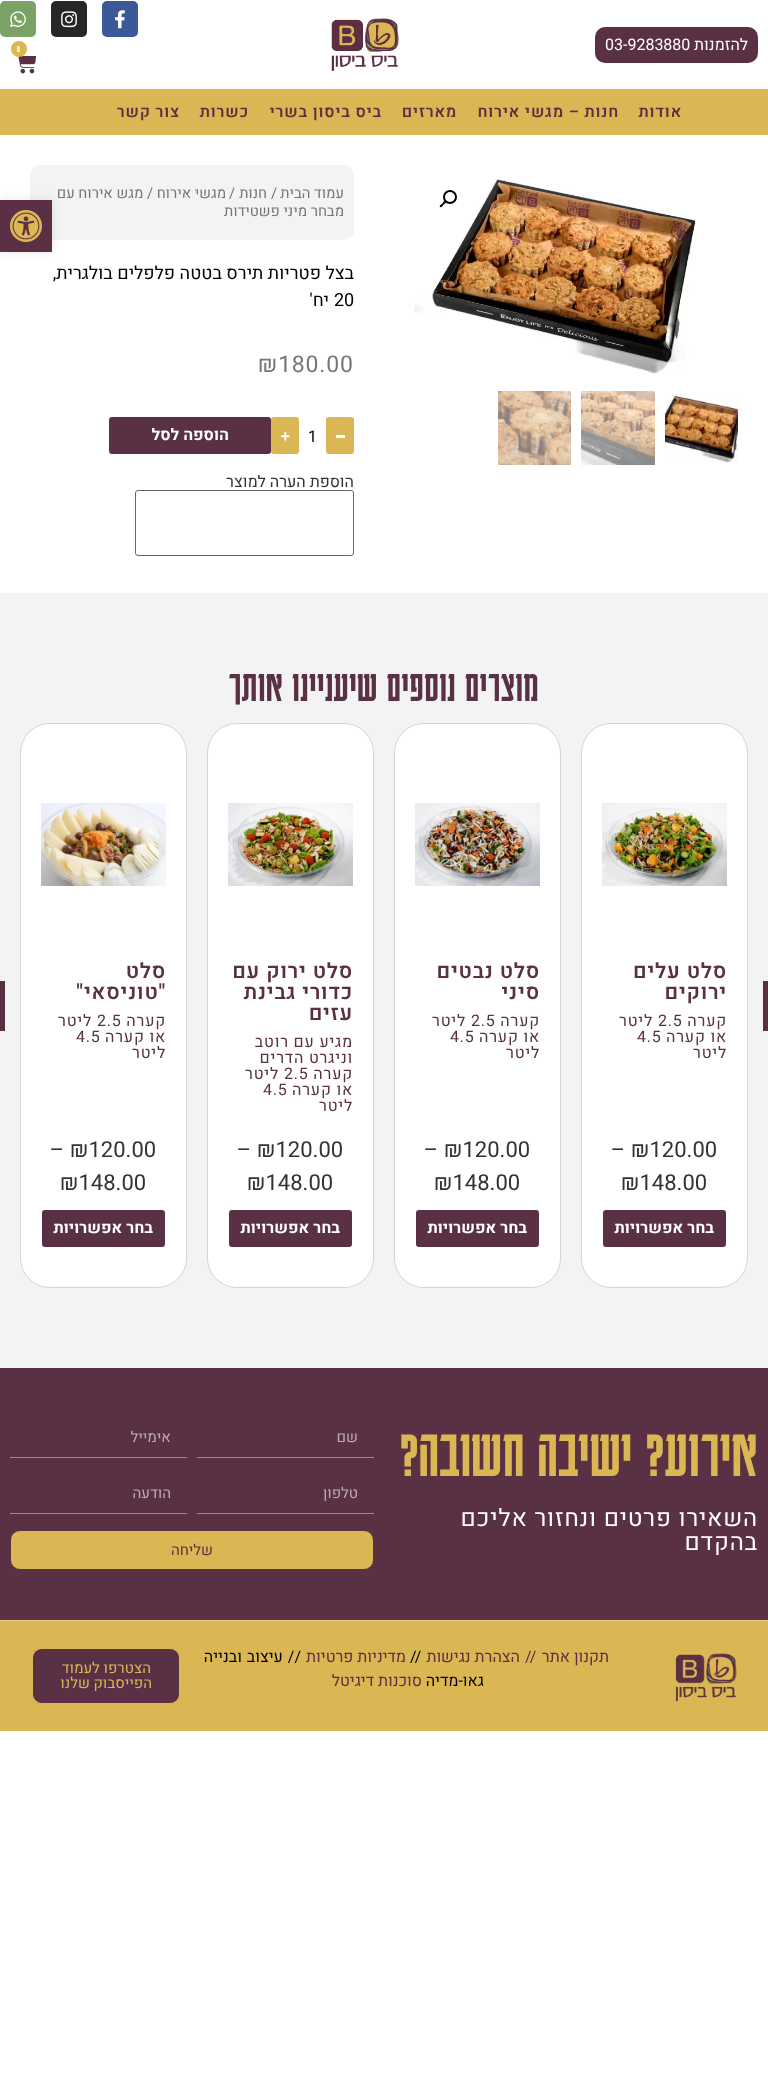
<svg xmlns="http://www.w3.org/2000/svg" width="768" height="2084" viewBox="0 0 768 2084">
  <defs>
    <filter id="blur1" x="-50%" y="-200%" width="200%" height="500%"><feGaussianBlur stdDeviation="5"/></filter>
  </defs>
  <rect width="100%" height="100%" fill="#ffffff"/>
  <rect x="595" y="27" width="163" height="36" rx="10" fill="#5a3044"/>
  <text x="748" y="50" font-family="Heebo" font-size="16" direction="rtl" fill="#ffffff">להזמנות</text>
  <text x="605" y="50" font-family="Heebo" font-size="16" fill="#ffffff">03-9283880</text>
  <image x="331" y="18" width="68" height="53" href="img1.png"/>
  <rect x="102" y="1" width="36" height="36" rx="5" fill="#3b5998"/>
  <image x="115" y="10" width="10" height="19" href="img2.png"/>
  <rect x="51" y="1" width="36" height="36" rx="5" fill="#262626"/>
  <image x="61" y="11" width="16" height="17" href="img3.png"/>
  <rect x="0" y="1" width="36" height="36" rx="5" fill="#7aa264"/>
  <image x="10" y="11" width="16" height="17" href="img4.png"/>
  <image x="18" y="56" width="19" height="18" href="img5.png"/>
  <circle cx="19" cy="49" r="8" fill="#dbb753"/>
  <text x="17" y="52" font-family="Karantina" font-size="10" letter-spacing="0.8" fill="#ffffff">0</text>
  <rect x="0" y="89" width="768" height="46" fill="#dbb753"/>
  <text x="682" y="117" font-family="Heebo" font-size="16" font-weight="600" letter-spacing="0.8" direction="rtl" fill="#5a3044">אודות</text>
  <text x="619" y="117" font-family="Heebo" font-size="16" font-weight="600" letter-spacing="0.8" direction="rtl" fill="#5a3044">חנות – מגשי אירוח</text>
  <text x="457" y="117" font-family="Heebo" font-size="16" font-weight="600" letter-spacing="0.8" direction="rtl" fill="#5a3044">מארזים</text>
  <text x="382" y="117" font-family="Heebo" font-size="16" font-weight="600" letter-spacing="0.8" direction="rtl" fill="#5a3044">ביס ביסון בשרי</text>
  <text x="249" y="117" font-family="Heebo" font-size="16" font-weight="600" letter-spacing="0.8" direction="rtl" fill="#5a3044">כשרות</text>
  <text x="180" y="117" font-family="Heebo" font-size="16" font-weight="600" letter-spacing="0.8" direction="rtl" fill="#5a3044">צור קשר</text>
  <image x="414" y="179" width="282" height="195" href="img6.png"/>
  <circle cx="450" cy="197" r="6" fill="none" stroke="#000000" stroke-width="2"/>
  <path d="M446 201C447 202.5 444.5 204 443.5 204.5C443 205.5 441.5 208 440 207C439 205.5 441.5 204 442.5 203.5C443 202.5 444.5 200 446 201Z" fill="#000000"/>
  <image x="665" y="394" width="73" height="69" href="img7.png"/>
  <image x="581" y="391" width="74" height="74" href="img8.png"/>
  <image x="498" y="391" width="73" height="74" href="img9.png"/>
  <rect x="30" y="165" width="324" height="75" rx="10" fill="#f3f3f3"/>
  <text x="344" y="198" font-family="Heebo" font-size="14.75" direction="rtl" fill="#767676">עמוד הבית</text>
  <text x="271" y="198" font-family="Heebo" font-size="14.75" fill="#767676">/</text>
  <text x="267" y="198" font-family="Heebo" font-size="14.75" direction="rtl" fill="#767676">חנות</text>
  <text x="229" y="198" font-family="Heebo" font-size="14.75" fill="#767676">/</text>
  <text x="226" y="198" font-family="Heebo" font-size="14.75" direction="rtl" fill="#767676">מגשי אירוח</text>
  <text x="153" y="198" font-family="Heebo" font-size="14.75" direction="rtl" fill="#767676">/ מגש אירוח עם</text>
  <text x="344" y="216" font-family="Heebo" font-size="14.75" direction="rtl" fill="#767676">מבחר מיני פשטידות</text>
  <text x="354" y="279" font-family="Heebo" font-size="18" direction="rtl" fill="#000000">בצל פטריות תירס בטטה פלפלים בולגרית,</text>
  <text x="334" y="306" font-family="Heebo" font-size="18" fill="#000000">20</text>
  <text x="329" y="306" font-family="Heebo" font-size="18" direction="rtl" fill="#000000">יח'</text>
  <text x="258" y="372" font-family="Heebo" font-size="23" letter-spacing="0.8" fill="#767676">₪180.00</text>
  <rect x="326" y="417" width="28" height="37" rx="3" fill="#dbb753"/>
  <rect x="336" y="435" width="9" height="3" fill="#ffffff"/>
  <text x="308" y="442" font-family="Heebo" font-size="16" fill="#000000">1</text>
  <rect x="271" y="417" width="28" height="37" rx="3" fill="#dbb753"/>
  <image x="281" y="431" width="9" height="10" href="img10.png"/>
  <rect x="109" y="417" width="162" height="37" rx="3" fill="#5a3044"/>
  <text x="229" y="440" font-family="Heebo" font-size="16" font-weight="bold" direction="rtl" fill="#ffffff">הוספה לסל</text>
  <text x="354" y="487" font-family="Heebo" font-size="16" direction="rtl" fill="#333333">הוספת הערה למוצר</text>
  <rect x="135.5" y="490.5" width="218" height="65" rx="2.5" fill="none" stroke="#666666"/>
  <rect x="0" y="593" width="768" height="775" fill="#f3f3f3"/>
  <text x="539" y="701" font-family="Karantina" font-size="45" letter-spacing="0.8" direction="rtl" fill="#5a3044">מוצרים נוספים שיעניינו אותך</text>
  <rect x="763" y="981" width="5" height="50" fill="#5a3044"/>
  <rect x="581.5" y="723.5" width="166" height="564" rx="29.5" fill="#ffffff" stroke="#d5d5d5"/>
  <image x="602" y="803" width="125" height="83" href="img11.png"/>
  <text x="727" y="978" font-family="Heebo" font-size="21" font-weight="600" letter-spacing="0.8" direction="rtl" fill="#5a3044">סלט עלים</text>
  <text x="727" y="999" font-family="Heebo" font-size="21" font-weight="600" letter-spacing="0.8" direction="rtl" fill="#5a3044">ירוקים</text>
  <text x="727" y="1026" font-family="Heebo" font-size="16" letter-spacing="0.8" direction="rtl" fill="#5a3044">קערה</text>
  <text x="658" y="1026" font-family="Heebo" font-size="16" letter-spacing="0.8" fill="#5a3044">2.5</text>
  <text x="653" y="1026" font-family="Heebo" font-size="16" letter-spacing="0.8" direction="rtl" fill="#5a3044">ליטר</text>
  <text x="727" y="1042" font-family="Heebo" font-size="16" letter-spacing="0.8" direction="rtl" fill="#5a3044">או קערה</text>
  <text x="637" y="1042" font-family="Heebo" font-size="16" letter-spacing="0.8" fill="#5a3044">4.5</text>
  <text x="727" y="1058" font-family="Heebo" font-size="16" letter-spacing="0.8" direction="rtl" fill="#5a3044">ליטר</text>
  <text x="631" y="1157" font-family="Heebo" font-size="22" fill="#333333">₪120.00</text>
  <text x="611" y="1157" font-family="Heebo" font-size="22" fill="#333333">–</text>
  <text x="621" y="1190" font-family="Heebo" font-size="22" fill="#333333">₪148.00</text>
  <rect x="603" y="1210" width="123" height="37" rx="3" fill="#5a3044"/>
  <text x="714" y="1233" font-family="Heebo" font-size="16" font-weight="bold" direction="rtl" fill="#ffffff">בחר אפשרויות</text>
  <rect x="394.5" y="723.5" width="166" height="564" rx="29.5" fill="#ffffff" stroke="#d5d5d5"/>
  <image x="415" y="803" width="125" height="83" href="img12.png"/>
  <text x="540" y="978" font-family="Heebo" font-size="21" font-weight="600" letter-spacing="0.8" direction="rtl" fill="#5a3044">סלט נבטים</text>
  <text x="540" y="999" font-family="Heebo" font-size="21" font-weight="600" letter-spacing="0.8" direction="rtl" fill="#5a3044">סיני</text>
  <text x="540" y="1026" font-family="Heebo" font-size="16" letter-spacing="0.8" direction="rtl" fill="#5a3044">קערה</text>
  <text x="471" y="1026" font-family="Heebo" font-size="16" letter-spacing="0.8" fill="#5a3044">2.5</text>
  <text x="466" y="1026" font-family="Heebo" font-size="16" letter-spacing="0.8" direction="rtl" fill="#5a3044">ליטר</text>
  <text x="540" y="1042" font-family="Heebo" font-size="16" letter-spacing="0.8" direction="rtl" fill="#5a3044">או קערה</text>
  <text x="450" y="1042" font-family="Heebo" font-size="16" letter-spacing="0.8" fill="#5a3044">4.5</text>
  <text x="540" y="1058" font-family="Heebo" font-size="16" letter-spacing="0.8" direction="rtl" fill="#5a3044">ליטר</text>
  <text x="444" y="1157" font-family="Heebo" font-size="22" fill="#333333">₪120.00</text>
  <text x="424" y="1157" font-family="Heebo" font-size="22" fill="#333333">–</text>
  <text x="434" y="1190" font-family="Heebo" font-size="22" fill="#333333">₪148.00</text>
  <rect x="416" y="1210" width="123" height="37" rx="3" fill="#5a3044"/>
  <text x="527" y="1233" font-family="Heebo" font-size="16" font-weight="bold" direction="rtl" fill="#ffffff">בחר אפשרויות</text>
  <rect x="207.5" y="723.5" width="166" height="564" rx="29.5" fill="#ffffff" stroke="#d5d5d5"/>
  <image x="228" y="803" width="125" height="83" href="img13.png"/>
  <text x="353" y="978" font-family="Heebo" font-size="21" font-weight="600" letter-spacing="0.8" direction="rtl" fill="#5a3044">סלט ירוק עם</text>
  <text x="353" y="999" font-family="Heebo" font-size="21" font-weight="600" letter-spacing="0.8" direction="rtl" fill="#5a3044">כדורי גבינת</text>
  <text x="353" y="1020" font-family="Heebo" font-size="21" font-weight="600" letter-spacing="0.8" direction="rtl" fill="#5a3044">עזים</text>
  <text x="353" y="1047" font-family="Heebo" font-size="16" letter-spacing="0.8" direction="rtl" fill="#5a3044">מגיע עם רוטב</text>
  <text x="353" y="1063" font-family="Heebo" font-size="16" letter-spacing="0.8" direction="rtl" fill="#5a3044">וניגרט הדרים</text>
  <text x="353" y="1079" font-family="Heebo" font-size="16" letter-spacing="0.8" direction="rtl" fill="#5a3044">קערה</text>
  <text x="284" y="1079" font-family="Heebo" font-size="16" letter-spacing="0.8" fill="#5a3044">2.5</text>
  <text x="279" y="1079" font-family="Heebo" font-size="16" letter-spacing="0.8" direction="rtl" fill="#5a3044">ליטר</text>
  <text x="353" y="1095" font-family="Heebo" font-size="16" letter-spacing="0.8" direction="rtl" fill="#5a3044">או קערה</text>
  <text x="263" y="1095" font-family="Heebo" font-size="16" letter-spacing="0.8" fill="#5a3044">4.5</text>
  <text x="353" y="1111" font-family="Heebo" font-size="16" letter-spacing="0.8" direction="rtl" fill="#5a3044">ליטר</text>
  <text x="257" y="1157" font-family="Heebo" font-size="22" fill="#333333">₪120.00</text>
  <text x="237" y="1157" font-family="Heebo" font-size="22" fill="#333333">–</text>
  <text x="247" y="1190" font-family="Heebo" font-size="22" fill="#333333">₪148.00</text>
  <rect x="229" y="1210" width="123" height="37" rx="3" fill="#5a3044"/>
  <text x="340" y="1233" font-family="Heebo" font-size="16" font-weight="bold" direction="rtl" fill="#ffffff">בחר אפשרויות</text>
  <rect x="20.5" y="723.5" width="166" height="564" rx="29.5" fill="#ffffff" stroke="#d5d5d5"/>
  <image x="41" y="803" width="125" height="83" href="img14.png"/>
  <text x="166" y="978" font-family="Heebo" font-size="21" font-weight="600" letter-spacing="0.8" direction="rtl" fill="#5a3044">סלט</text>
  <text x="166" y="999" font-family="Heebo" font-size="21" font-weight="600" letter-spacing="0.8" direction="rtl" fill="#5a3044">"טוניסאי"</text>
  <text x="166" y="1026" font-family="Heebo" font-size="16" letter-spacing="0.8" direction="rtl" fill="#5a3044">קערה</text>
  <text x="97" y="1026" font-family="Heebo" font-size="16" letter-spacing="0.8" fill="#5a3044">2.5</text>
  <text x="92" y="1026" font-family="Heebo" font-size="16" letter-spacing="0.8" direction="rtl" fill="#5a3044">ליטר</text>
  <text x="166" y="1042" font-family="Heebo" font-size="16" letter-spacing="0.8" direction="rtl" fill="#5a3044">או קערה</text>
  <text x="76" y="1042" font-family="Heebo" font-size="16" letter-spacing="0.8" fill="#5a3044">4.5</text>
  <text x="166" y="1058" font-family="Heebo" font-size="16" letter-spacing="0.8" direction="rtl" fill="#5a3044">ליטר</text>
  <text x="70" y="1157" font-family="Heebo" font-size="22" fill="#333333">₪120.00</text>
  <text x="50" y="1157" font-family="Heebo" font-size="22" fill="#333333">–</text>
  <text x="60" y="1190" font-family="Heebo" font-size="22" fill="#333333">₪148.00</text>
  <rect x="42" y="1210" width="123" height="37" rx="3" fill="#5a3044"/>
  <text x="153" y="1233" font-family="Heebo" font-size="16" font-weight="bold" direction="rtl" fill="#ffffff">בחר אפשרויות</text>
  <rect x="0" y="981" width="5" height="50" fill="#5a3044"/>
  <rect x="0" y="200" width="52" height="52" fill="#000000" fill-opacity="0.1" filter="url(#blur1)"/>
  <rect x="0" y="200" width="52" height="52" fill="#5b3045"/>
  <image x="10" y="210" width="32" height="32" href="img15.png"/>
  <rect x="0" y="1368" width="768" height="252" fill="#5a3044"/>
  <text x="758" y="1476" font-family="Karantina" font-size="69" letter-spacing="0.8" direction="rtl" fill="#dbb753">אירוע? ישיבה חשובה?</text>
  <text x="758" y="1526" font-family="Heebo" font-size="24" letter-spacing="0.8" direction="rtl" fill="#ffffff">השאירו פרטים ונחזור אליכם</text>
  <text x="758" y="1550" font-family="Heebo" font-size="24" letter-spacing="0.8" direction="rtl" fill="#ffffff">בהקדם</text>
  <rect x="197" y="1457" width="177" height="1" fill="#7aa264"/>
  <text x="358" y="1442" font-family="Heebo" font-size="15" direction="rtl" fill="#bdacb4">שם</text>
  <rect x="10" y="1457" width="177" height="1" fill="#7aa264"/>
  <text x="171" y="1442" font-family="Heebo" font-size="15" direction="rtl" fill="#bdacb4">אימייל</text>
  <rect x="197" y="1513" width="177" height="1" fill="#7aa264"/>
  <text x="358" y="1498" font-family="Heebo" font-size="15" direction="rtl" fill="#bdacb4">טלפון</text>
  <rect x="10" y="1513" width="177" height="1" fill="#7aa264"/>
  <text x="171" y="1498" font-family="Heebo" font-size="15" direction="rtl" fill="#bdacb4">הודעה</text>
  <rect x="10.5" y="1530.5" width="363" height="39" rx="9.5" fill="#dbb753" stroke="#5a3044"/>
  <text x="213" y="1555" font-family="Heebo" font-size="15" direction="rtl" fill="#5a3044">שליחה</text>
  <rect x="0" y="1621" width="768" height="110" fill="#dbb753"/>
  <rect x="0" y="1620" width="768" height="1" fill="#e4cd8e"/>
  <image x="675" y="1653" width="62" height="49" href="img16.png"/>
  <text x="609" y="1662" font-family="Heebo" font-size="16" direction="rtl" fill="#5a3044">תקנון אתר</text>
  <text x="525" y="1662" font-family="Heebo" font-size="16" fill="#5a3044">//</text>
  <text x="520" y="1662" font-family="Heebo" font-size="16" direction="rtl" fill="#5a3044">הצהרת נגישות</text>
  <text x="410" y="1662" font-family="Heebo" font-size="16" fill="#000000">//</text>
  <text x="406" y="1662" font-family="Heebo" font-size="16" direction="rtl" fill="#5a3044">מדיניות פרטיות</text>
  <text x="301" y="1662" word-spacing="1" font-family="Heebo" font-size="16" direction="rtl" fill="#000000">// עיצוב ובנייה</text>
  <text x="484" y="1686" font-family="Heebo" font-size="16" direction="rtl" fill="#000000">גאו-מדיה</text>
  <text x="422" y="1686" font-family="Heebo" font-size="16" direction="rtl" fill="#5a3044">סוכנות דיגיטל</text>
  <rect x="32.5" y="1648.5" width="147" height="55" rx="9.5" fill="#5a3044" stroke="#dbb753"/>
  <text x="151" y="1673" font-family="Heebo" font-size="15" direction="rtl" fill="#dbb753">הצטרפו לעמוד</text>
  <text x="152" y="1688" font-family="Heebo" font-size="15" direction="rtl" fill="#dbb753">הפייסבוק שלנו</text>
</svg>
